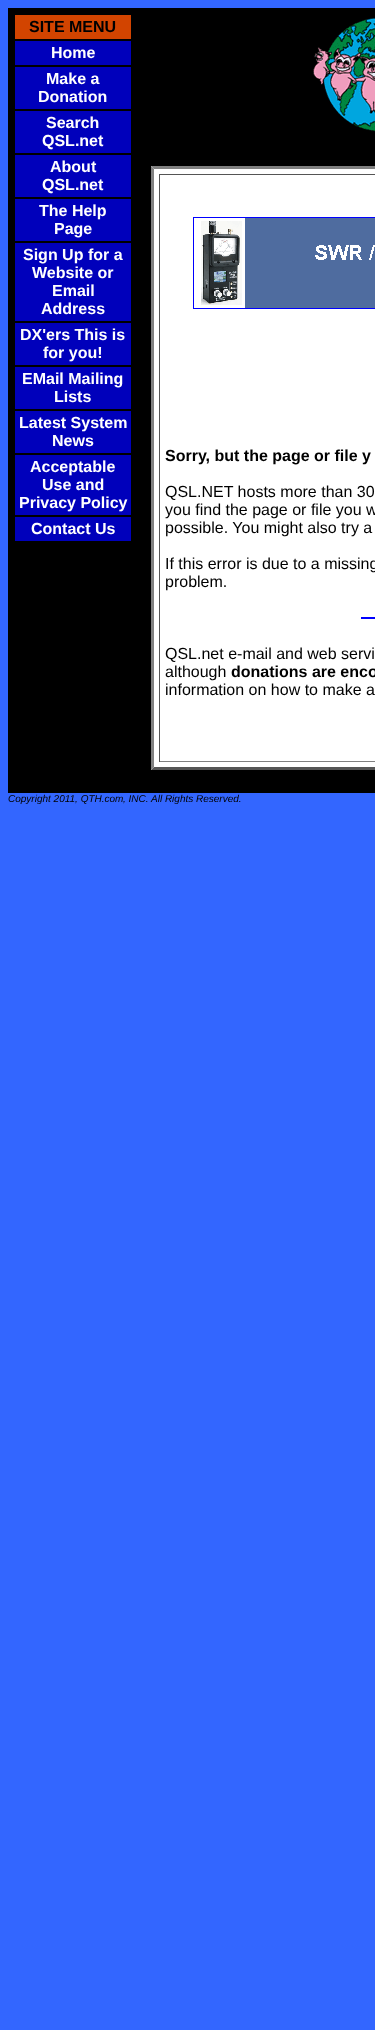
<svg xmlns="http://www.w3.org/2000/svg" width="375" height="2030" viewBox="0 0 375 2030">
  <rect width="100%" height="100%" fill="#3366ff"/>
  <rect x="8" y="8" width="367" height="785" fill="#000000"/>
  <rect x="15" y="15" width="116" height="24" fill="#d24400"/>
  <text x="29" y="32" font-family="Liberation Sans" font-size="16" font-weight="bold" fill="#000000">SITE MENU</text>
  <rect x="15" y="41" width="116" height="24" fill="#0000bb"/>
  <text x="51" y="58" font-family="Liberation Sans" font-size="16" font-weight="bold" fill="#ffffff">Home</text>
  <rect x="15" y="67" width="116" height="42" fill="#0000bb"/>
  <text x="46" y="84" font-family="Liberation Sans" font-size="16" font-weight="bold" fill="#ffffff">Make a</text>
  <text x="38" y="102" font-family="Liberation Sans" font-size="16" font-weight="bold" fill="#ffffff">Donation</text>
  <rect x="15" y="111" width="116" height="42" fill="#0000bb"/>
  <text x="46" y="128" font-family="Liberation Sans" font-size="16" font-weight="bold" fill="#ffffff">Search</text>
  <text x="42" y="146" font-family="Liberation Sans" font-size="16" font-weight="bold" fill="#ffffff">QSL.net</text>
  <rect x="15" y="155" width="116" height="42" fill="#0000bb"/>
  <text x="50" y="172" font-family="Liberation Sans" font-size="16" font-weight="bold" fill="#ffffff">About</text>
  <text x="42" y="190" font-family="Liberation Sans" font-size="16" font-weight="bold" fill="#ffffff">QSL.net</text>
  <rect x="15" y="199" width="116" height="42" fill="#0000bb"/>
  <text x="39" y="216" font-family="Liberation Sans" font-size="16" font-weight="bold" fill="#ffffff">The Help</text>
  <text x="54" y="234" font-family="Liberation Sans" font-size="16" font-weight="bold" fill="#ffffff">Page</text>
  <rect x="15" y="243" width="116" height="78" fill="#0000bb"/>
  <text x="23" y="260" font-family="Liberation Sans" font-size="16" font-weight="bold" fill="#ffffff">Sign Up for a</text>
  <text x="32" y="278" font-family="Liberation Sans" font-size="16" font-weight="bold" fill="#ffffff">Website or</text>
  <text x="52" y="296" font-family="Liberation Sans" font-size="16" font-weight="bold" fill="#ffffff">Email</text>
  <text x="41" y="314" font-family="Liberation Sans" font-size="16" font-weight="bold" fill="#ffffff">Address</text>
  <rect x="15" y="323" width="116" height="42" fill="#0000bb"/>
  <text x="20" y="340" font-family="Liberation Sans" font-size="16" font-weight="bold" fill="#ffffff">DX'ers This is</text>
  <text x="43" y="358" font-family="Liberation Sans" font-size="16" font-weight="bold" fill="#ffffff">for you!</text>
  <rect x="15" y="367" width="116" height="42" fill="#0000bb"/>
  <text x="22" y="384" font-family="Liberation Sans" font-size="16" font-weight="bold" fill="#ffffff">EMail Mailing</text>
  <text x="54" y="402" font-family="Liberation Sans" font-size="16" font-weight="bold" fill="#ffffff">Lists</text>
  <rect x="15" y="411" width="116" height="42" fill="#0000bb"/>
  <text x="19" y="428" font-family="Liberation Sans" font-size="16" font-weight="bold" fill="#ffffff">Latest System</text>
  <text x="52" y="446" font-family="Liberation Sans" font-size="16" font-weight="bold" fill="#ffffff">News</text>
  <rect x="15" y="455" width="116" height="60" fill="#0000bb"/>
  <text x="30" y="472" font-family="Liberation Sans" font-size="16" font-weight="bold" fill="#ffffff">Acceptable</text>
  <text x="42" y="490" font-family="Liberation Sans" font-size="16" font-weight="bold" fill="#ffffff">Use and</text>
  <text x="19" y="508" font-family="Liberation Sans" font-size="16" font-weight="bold" fill="#ffffff">Privacy Policy</text>
  <rect x="15" y="517" width="116" height="24" fill="#0000bb"/>
  <text x="31" y="534" font-family="Liberation Sans" font-size="16" font-weight="bold" fill="#ffffff">Contact Us</text>
  <image x="313" y="18" width="62" height="114" href="img1.png"/>
  <rect x="151" y="166" width="224" height="604" fill="#ffffff"/>
  <path d="M151 166H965L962 169H154Z" fill="#808080"/>
  <path d="M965 770H151L154 767H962Z" fill="#555555"/>
  <path d="M151 770V166L154 169V767Z" fill="#808080"/>
  <rect x="159" y="174" width="216" height="1" fill="#555555"/>
  <rect x="159" y="761" width="216" height="1" fill="#808080"/>
  <rect x="159" y="174" width="1" height="588" fill="#555555"/>
  <rect x="193.5" y="217.5" width="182" height="91" fill="none" stroke="#0000ff"/>
  <image x="201" y="218" width="174" height="90" href="img2.png"/>
  <text x="165" y="461" font-family="Liberation Sans" font-size="16" font-weight="bold" fill="#000000">Sorry, but the page or file y</text>
  <text x="165" y="497" font-family="Liberation Sans" font-size="16" fill="#000000">QSL.NET hosts more than 30</text>
  <text x="165" y="515" font-family="Liberation Sans" font-size="16" fill="#000000">you find the page or file you w</text>
  <text x="165" y="533" font-family="Liberation Sans" font-size="16" fill="#000000">possible. You might also try a</text>
  <text x="165" y="569" font-family="Liberation Sans" font-size="16" fill="#000000">If this error is due to a missing</text>
  <text x="165" y="587" font-family="Liberation Sans" font-size="16" fill="#000000">problem.</text>
  <rect x="361" y="617" width="14" height="2" fill="#0000ff"/>
  <text x="165" y="659" font-family="Liberation Sans" font-size="16" fill="#000000">QSL.net e-mail and web servi</text>
  <text x="165" y="677" font-family="Liberation Sans" font-size="16" fill="#000000">although</text>
  <text x="231" y="677" font-family="Liberation Sans" font-size="16" font-weight="bold" fill="#000000">donations are enco</text>
  <text x="165" y="695" font-family="Liberation Sans" font-size="16" fill="#000000">information on how to make a</text>
  <text x="8" y="802" font-family="Liberation Sans" font-size="10" font-style="italic" fill="#000000">Copyright 2011, QTH.com</text>
  <text x="123" y="802" font-family="Liberation Sans" font-size="10" font-style="italic" fill="#000000">, INC.</text>
  <text x="151" y="802" font-family="Liberation Sans" font-size="10" font-style="italic" fill="#000000">All Rights Reserved.</text>
</svg>
